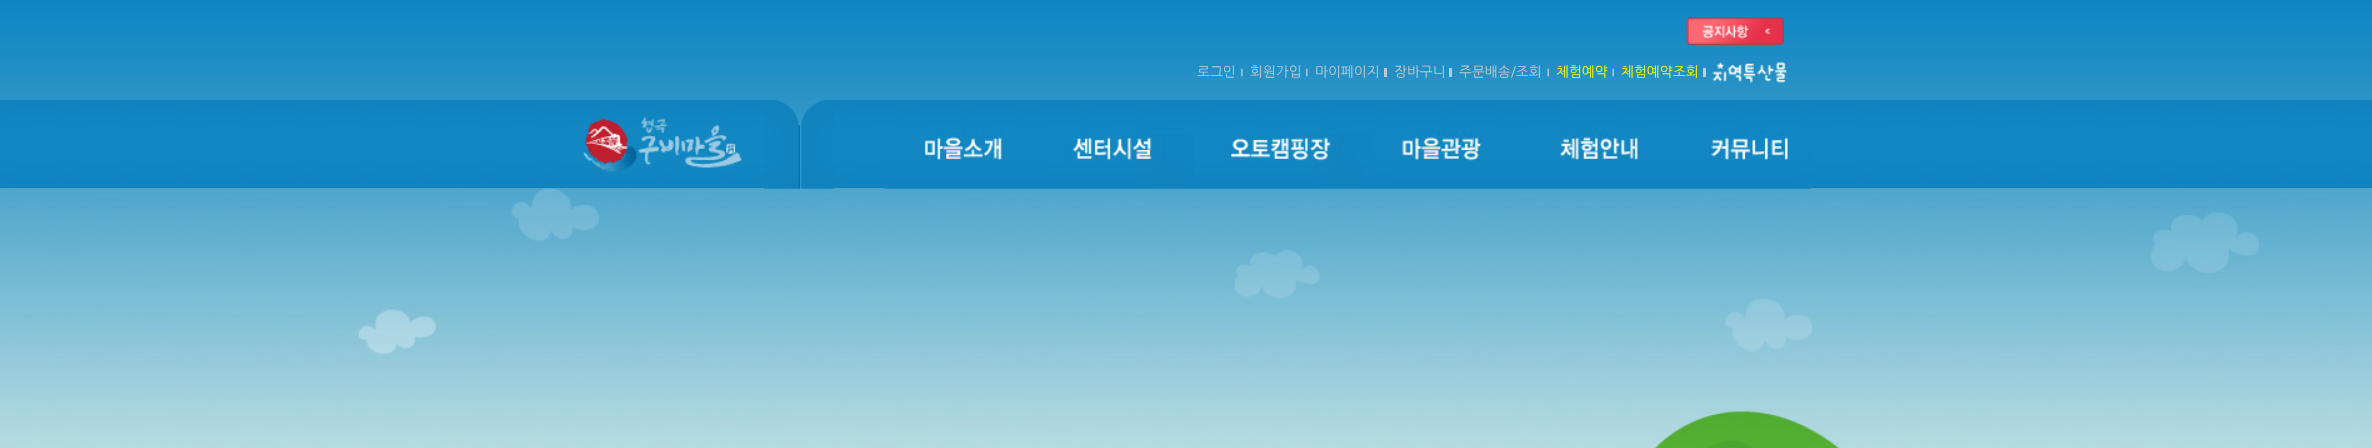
<svg xmlns="http://www.w3.org/2000/svg" width="2372" height="448" viewBox="0 0 2372 448">
  <rect width="100%" height="100%" fill="#ffffff"/>
  <image x="0" y="0" width="2372" height="100" href="img1.png"/>
  <image x="1686" y="17" width="98" height="28" href="img2.png"/>
  <text x="1197" y="76" font-family="NanumGothic" font-size="13.75" fill="#c7cac9">로그인</text>
  <image x="1241" y="68" width="2" height="9" href="img3.png"/>
  <text x="1250" y="76" font-family="NanumGothic" font-size="13.75" fill="#c7cac9">회원가입</text>
  <image x="1306" y="68" width="2" height="9" href="img3.png"/>
  <text x="1315" y="76" font-family="NanumGothic" font-size="13.75" fill="#c7cac9">마이페이지</text>
  <rect x="1384" y="68" width="3" height="9" fill="#d0d2d8" fill-opacity="0.87"/>
  <text x="1394" y="76" font-family="NanumGothic" font-size="13.75" fill="#c7cac9">장바구니</text>
  <rect x="1449" y="68" width="3" height="9" fill="#d0d2d8" fill-opacity="0.87"/>
  <text x="1459" y="76" font-family="NanumGothic" font-size="13.75" fill="#c7cac9">주문배송/조회</text>
  <image x="1547" y="68" width="2" height="9" href="img4.png"/>
  <text x="1556" y="76" font-family="NanumGothic" font-size="13.75" fill="#ffff00">체험예약</text>
  <image x="1612" y="68" width="2" height="9" href="img5.png"/>
  <text x="1621" y="76" font-family="NanumGothic" font-size="13.75" fill="#ffff00">체험예약조회</text>
  <rect x="1703" y="68" width="3" height="9" fill="#d0d2d8" fill-opacity="0.94"/>
  <image x="1712" y="61" width="75" height="22" href="img6.png"/>
  <image x="0" y="100" width="2372" height="89" href="img7.png"/>
  <image x="583" y="117" width="159" height="55" href="img8.png"/>
  <image x="0" y="188" width="2372" height="260" href="img16.png"/>
  <image x="763" y="100" width="71" height="89" href="img9.png"/>
  <image x="883" y="130" width="162" height="59" href="img10.png"/>
  <image x="1045" y="134" width="149" height="55" href="img11.png"/>
  <image x="1193" y="133" width="170" height="56" href="img12.png"/>
  <image x="1362" y="130" width="157" height="59" href="img13.png"/>
  <image x="1518" y="130" width="160" height="59" href="img14.png"/>
  <image x="1677" y="130" width="135" height="59" href="img15.png"/>
</svg>
